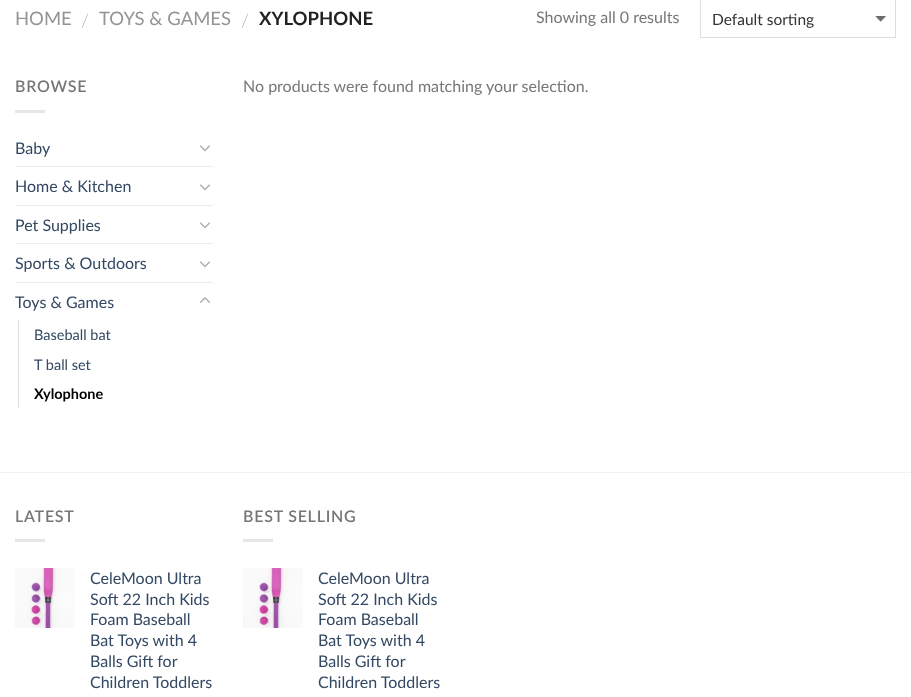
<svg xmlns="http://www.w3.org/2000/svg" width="911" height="697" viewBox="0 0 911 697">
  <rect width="100%" height="100%" fill="#ffffff"/>
  <text x="15" y="25" font-family="Lato" font-size="18.5" fill="#949494">HOME</text>
  <text x="81" y="27" font-family="Lato" font-size="18.5" font-weight="300" fill="#b2b2b2">/</text>
  <text x="99" y="25" font-family="Lato" font-size="18.5" fill="#949494">TOYS &amp; GAMES</text>
  <text x="241" y="27" font-family="Lato" font-size="18.5" font-weight="300" fill="#b2b2b2">/</text>
  <text x="259" y="25" font-family="Lato" font-size="18.5" font-weight="bold" fill="#222222">XYLOPHONE</text>
  <text x="536" y="23" font-family="Lato" font-size="16" fill="#777777">Showing all 0 results</text>
  <image x="875" y="16" width="12" height="6" href="img1.png"/>
  <rect x="700.5" y="-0.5" width="195" height="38" fill="none" stroke="#dddddd"/>
  <text x="712" y="25" font-family="Lato" font-size="15.5" fill="#333333">Default sorting</text>
  <text x="15" y="92" font-family="Lato" font-size="16" font-weight="600" letter-spacing="0.75" fill="#777777">BROWSE</text>
  <rect x="15" y="110" width="30" height="3" fill="#e6e6e6"/>
  <text x="15" y="154" font-family="Lato" font-size="16" fill="#334862">Baby</text>
  <image x="199" y="145" width="12" height="7" href="img2.png"/>
  <rect x="15" y="166" width="198" height="1" fill="#ececec"/>
  <text x="15" y="192" font-family="Lato" font-size="16" fill="#334862">Home &amp; Kitchen</text>
  <image x="199" y="184" width="12" height="7" href="img2.png"/>
  <rect x="15" y="205" width="198" height="1" fill="#ececec"/>
  <text x="15" y="231" font-family="Lato" font-size="16" fill="#334862">Pet Supplies</text>
  <image x="199" y="222" width="12" height="7" href="img2.png"/>
  <rect x="15" y="243" width="198" height="1" fill="#ececec"/>
  <text x="15" y="269" font-family="Lato" font-size="16" fill="#334862">Sports &amp; Outdoors</text>
  <image x="199" y="261" width="12" height="7" href="img2.png"/>
  <rect x="15" y="282" width="198" height="1" fill="#ececec"/>
  <text x="15" y="308" font-family="Lato" font-size="16" fill="#334862">Toys &amp; Games</text>
  <image x="199" y="297" width="12" height="6" href="img3.png"/>
  <rect x="18" y="320" width="1" height="88" fill="#dddddd"/>
  <text x="34" y="340" font-family="Lato" font-size="14.5" fill="#334862">Baseball bat</text>
  <text x="34" y="370" font-family="Lato" font-size="14.5" fill="#334862">T ball set</text>
  <text x="34" y="399" font-family="Lato" font-size="14.5" font-weight="bold" fill="#000000">Xylophone</text>
  <text x="243" y="92" font-family="Lato" font-size="16" fill="#777777">No products were found matching your selection.</text>
  <rect x="0" y="472" width="911" height="1" fill="#f2f2f2"/>
  <text x="15" y="522" font-family="Lato" font-size="16" font-weight="600" letter-spacing="0.75" fill="#777777">LATEST</text>
  <rect x="15" y="539" width="30" height="3" fill="#e6e6e6"/>
  <image x="15" y="568" width="60" height="60" href="img4.png"/>
  <text x="90" y="584" font-family="Lato" font-size="16" fill="#334862">CeleMoon Ultra</text>
  <text x="90" y="605" font-family="Lato" font-size="16" fill="#334862">Soft 22 Inch Kids</text>
  <text x="90" y="625" font-family="Lato" font-size="16" fill="#334862">Foam Baseball</text>
  <text x="90" y="646" font-family="Lato" font-size="16" fill="#334862">Bat Toys with 4</text>
  <text x="90" y="667" font-family="Lato" font-size="16" fill="#334862">Balls Gift for</text>
  <text x="90" y="688" font-family="Lato" font-size="16" fill="#334862">Children Toddlers</text>
  <text x="243" y="522" font-family="Lato" font-size="16" font-weight="600" letter-spacing="0.75" fill="#777777">BEST SELLING</text>
  <rect x="243" y="539" width="30" height="3" fill="#e6e6e6"/>
  <image x="243" y="568" width="60" height="60" href="img4.png"/>
  <text x="318" y="584" font-family="Lato" font-size="16" fill="#334862">CeleMoon Ultra</text>
  <text x="318" y="605" font-family="Lato" font-size="16" fill="#334862">Soft 22 Inch Kids</text>
  <text x="318" y="625" font-family="Lato" font-size="16" fill="#334862">Foam Baseball</text>
  <text x="318" y="646" font-family="Lato" font-size="16" fill="#334862">Bat Toys with 4</text>
  <text x="318" y="667" font-family="Lato" font-size="16" fill="#334862">Balls Gift for</text>
  <text x="318" y="688" font-family="Lato" font-size="16" fill="#334862">Children Toddlers</text>
</svg>
